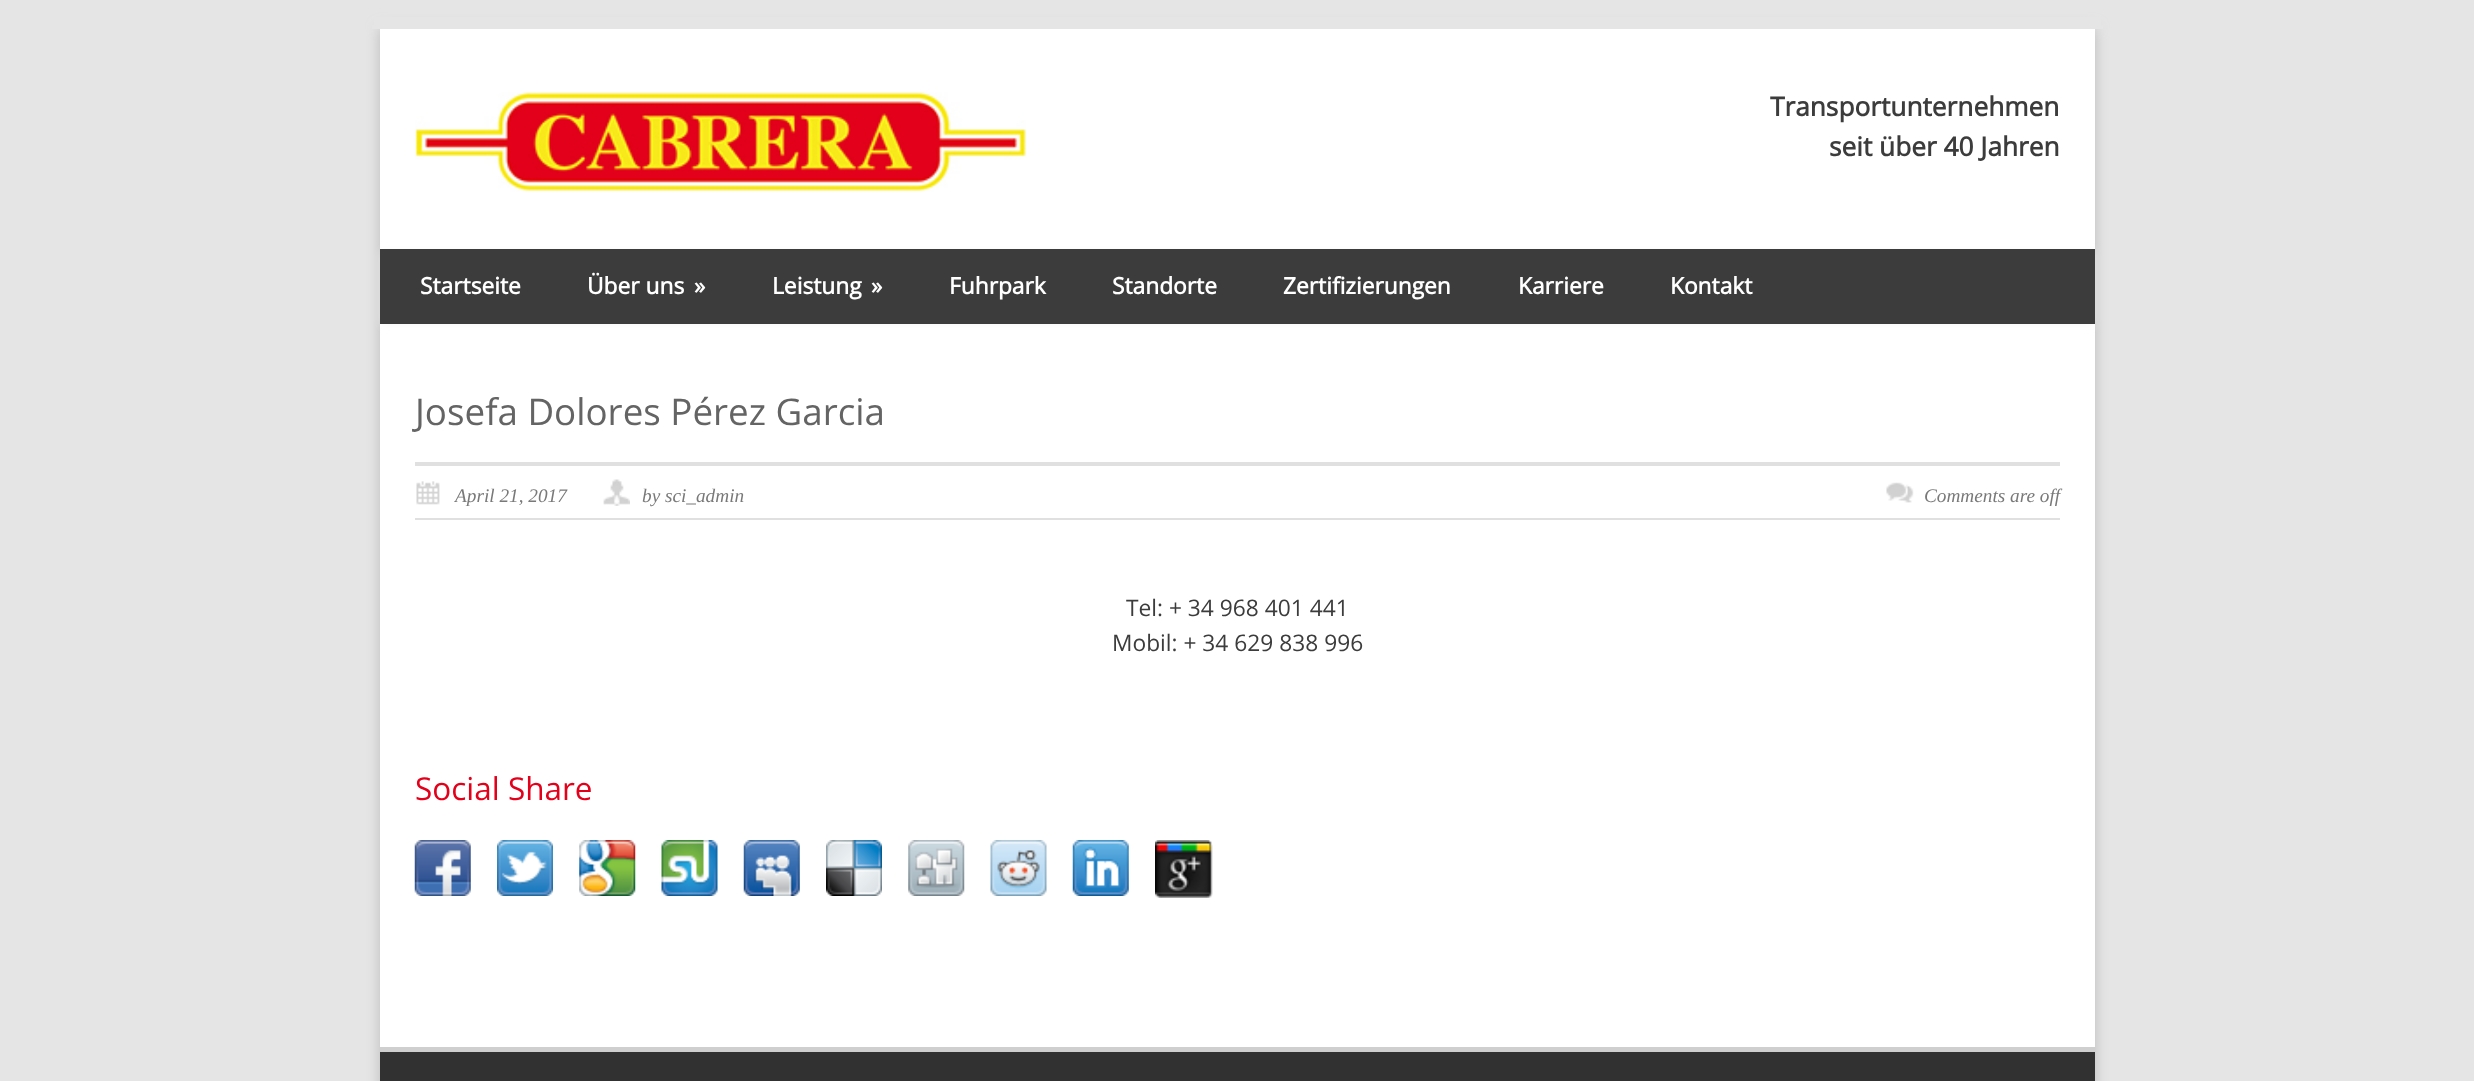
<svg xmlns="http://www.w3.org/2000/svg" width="2474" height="1081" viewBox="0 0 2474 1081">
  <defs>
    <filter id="blur1" x="-50%" y="-200%" width="200%" height="500%"><feGaussianBlur stdDeviation="7"/></filter>
    <filter id="blur2" x="-50%" y="-200%" width="200%" height="500%"><feGaussianBlur stdDeviation="4.5"/></filter>
  </defs>
  <rect width="100%" height="100%" fill="#e5e5e5"/>
  <rect x="380" y="28" width="1715" height="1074" fill="#bbbbbb" filter="url(#blur1)"/>
  <rect x="374" y="17" width="1727" height="8" fill="#e5e5e5"/>
  <rect x="372" y="25" width="1731" height="4" fill="#e5e5e5"/>
  <rect x="380" y="29" width="1715" height="1018" fill="#ffffff"/>
  <image x="414" y="92" width="612" height="100" href="img1.png"/>
  <text x="1770" y="116" font-family="Open Sans" font-size="26.25" font-weight="bold" fill="#3c3c3c">Transportunternehmen</text>
  <text x="1829" y="156" font-family="Open Sans" font-size="26.25" font-weight="bold" fill="#3c3c3c">seit über 40 Jahren</text>
  <rect x="382" y="252" width="1711" height="72" fill="#f5f5f5" filter="url(#blur2)"/>
  <rect x="380" y="249" width="1715" height="75" fill="#3c3c3c"/>
  <text x="420" y="294" font-family="Open Sans" font-size="22.75" font-weight="bold" fill="#ffffff">Startseite</text>
  <text x="587" y="294" font-family="Open Sans" font-size="22.75" font-weight="bold" fill="#ffffff">Über uns</text>
  <text x="694" y="294" font-family="Open Sans" font-size="22.75" font-weight="bold" fill="#ffffff">»</text>
  <text x="772" y="294" font-family="Open Sans" font-size="22.75" font-weight="bold" fill="#ffffff">Leistung</text>
  <text x="871" y="294" font-family="Open Sans" font-size="22.75" font-weight="bold" fill="#ffffff">»</text>
  <text x="949" y="294" font-family="Open Sans" font-size="22.75" font-weight="bold" fill="#ffffff">Fuhrpark</text>
  <text x="1112" y="294" font-family="Open Sans" font-size="22.75" font-weight="bold" fill="#ffffff">Standorte</text>
  <text x="1283" y="294" font-family="Open Sans" font-size="22.75" font-weight="bold" fill="#ffffff">Zertifizierungen</text>
  <text x="1518" y="294" font-family="Open Sans" font-size="22.75" font-weight="bold" fill="#ffffff">Karriere</text>
  <text x="1670" y="294" font-family="Open Sans" font-size="22.75" font-weight="bold" fill="#ffffff">Kontakt</text>
  <rect x="415" y="462" width="1645" height="4" fill="#e0e0e0"/>
  <text x="415" y="425" font-family="Open Sans" font-size="36.75" fill="#646464">Josefa Dolores Pérez Garcia</text>
  <rect x="415" y="518" width="1645" height="2" fill="#e0e0e0"/>
  <image x="416" y="481" width="24" height="24" href="img2.png"/>
  <text x="455" y="502" font-family="Liberation Serif" font-size="19.25" font-style="italic" fill="#797979">April 21, 2017</text>
  <image x="603" y="479" width="27" height="27" href="img3.png"/>
  <text x="642" y="502" font-family="Liberation Serif" font-size="19.25" font-style="italic" fill="#797979">by sci_admin</text>
  <image x="1886" y="482" width="28" height="21" href="img4.png"/>
  <text x="1924" y="502" font-family="Liberation Serif" font-size="19.25" font-style="italic" fill="#797979">Comments are off</text>
  <text x="1126" y="616" font-family="Open Sans" font-size="22.75" fill="#3c3c3c">Tel: + 34 968 401 441</text>
  <text x="1112" y="651" font-family="Open Sans" font-size="22.75" fill="#3c3c3c">Mobil: + 34 629 838 996</text>
  <text x="415" y="800" font-family="Open Sans" font-size="31.5" fill="#e3001b">Social Share</text>
  <image x="414" y="840" width="57" height="56" href="img5.png"/>
  <image x="497" y="840" width="56" height="56" href="img6.png"/>
  <image x="579" y="840" width="57" height="56" href="img7.png"/>
  <image x="661" y="840" width="57" height="56" href="img8.png"/>
  <image x="743" y="840" width="57" height="56" href="img9.png"/>
  <image x="826" y="840" width="56" height="56" href="img10.png"/>
  <image x="908" y="840" width="57" height="56" href="img11.png"/>
  <image x="990" y="840" width="57" height="56" href="img12.png"/>
  <image x="1072" y="840" width="57" height="56" href="img13.png"/>
  <image x="1155" y="840" width="58" height="58" href="img14.png"/>
  <rect x="380" y="1052" width="1715" height="29" fill="#313131"/>
  <rect x="380" y="1047" width="1715" height="5" fill="#cfcfcf"/>
</svg>
